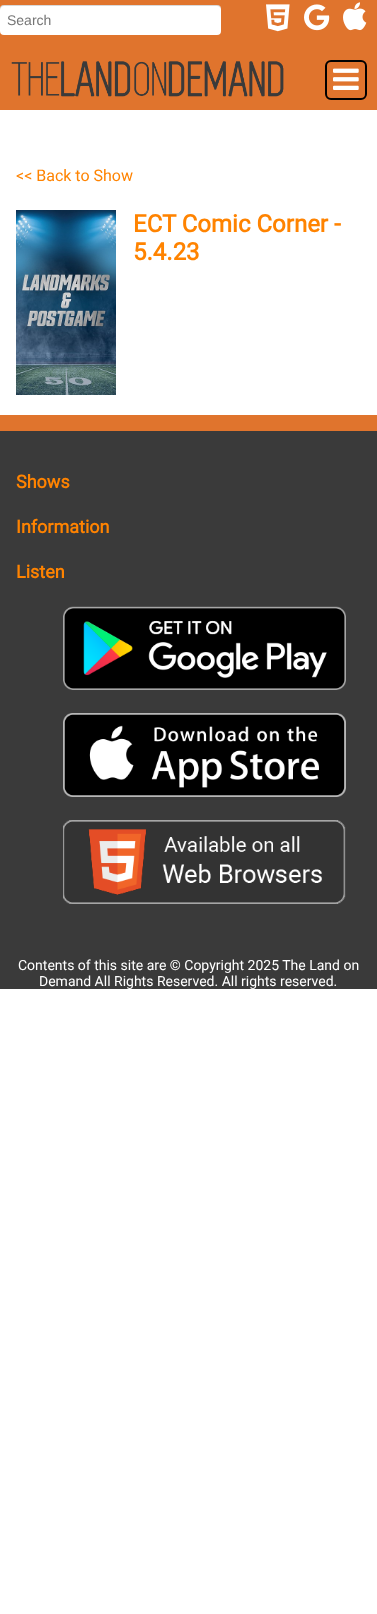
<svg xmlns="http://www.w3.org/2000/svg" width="377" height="1614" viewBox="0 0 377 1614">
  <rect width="100%" height="100%" fill="#ffffff"/>
  <rect x="0" y="0" width="377" height="110" fill="#e0742d"/>
  <rect x="0" y="5" width="221" height="30" rx="4" fill="#ffffff"/>
  <path d="M4 6H217C219 6 221 8 221 10C221 7 220 5 217 5H4C1 5 0 7 0 10C0 8 2 6 4 6Z" fill="#000000" fill-opacity="0.15"/>
  <text x="7" y="25" font-family="Liberation Sans" font-size="14" fill="#757575">Search</text>
  <image x="266" y="4" width="24" height="28" href="img1.png"/>
  <image x="304" y="4" width="26" height="27" href="img2.png"/>
  <image x="343" y="2" width="24" height="29" href="img3.png"/>
  <image x="11" y="61" width="273" height="36" href="img4.png"/>
  <rect x="326" y="61" width="40" height="38" rx="5" fill="none" stroke="#000000" stroke-width="2"/>
  <image x="333" y="68" width="26" height="22" href="img5.png"/>
  <text x="16" y="181" font-family="Roboto" font-size="16" fill="#ff8300">&lt;&lt; Back to Show</text>
  <image x="16" y="210" width="100" height="185" href="img6.png"/>
  <text x="133" y="232" font-family="Roboto" font-size="24" font-weight="bold" fill="#ff8300">ECT Comic Corner -</text>
  <text x="133" y="260" font-family="Roboto" font-size="24" font-weight="bold" fill="#ff8300">5.4.23</text>
  <rect x="0" y="431" width="377" height="558" fill="#3a3a3a"/>
  <rect x="0" y="415" width="377" height="16" fill="#e0742d"/>
  <text x="16" y="488" font-family="Roboto" font-size="18" font-weight="bold" fill="#ff8300">Shows</text>
  <text x="16" y="533" font-family="Roboto" font-size="18" font-weight="bold" fill="#ff8300">Information</text>
  <text x="16" y="578" font-family="Roboto" font-size="18" font-weight="bold" fill="#ff8300">Listen</text>
  <image x="63" y="606" width="283" height="84" href="img7.png"/>
  <image x="63" y="713" width="283" height="84" href="img8.png"/>
  <image x="63" y="820" width="283" height="84" href="img9.png"/>
  <text x="18" y="970" font-family="Roboto" font-size="14" fill="#ffffff">Contents of this site are © Copyright 2025 The Land on</text>
  <text x="39" y="986" font-family="Roboto" font-size="14" fill="#ffffff">Demand All Rights Reserved. All rights reserved.</text>
</svg>
